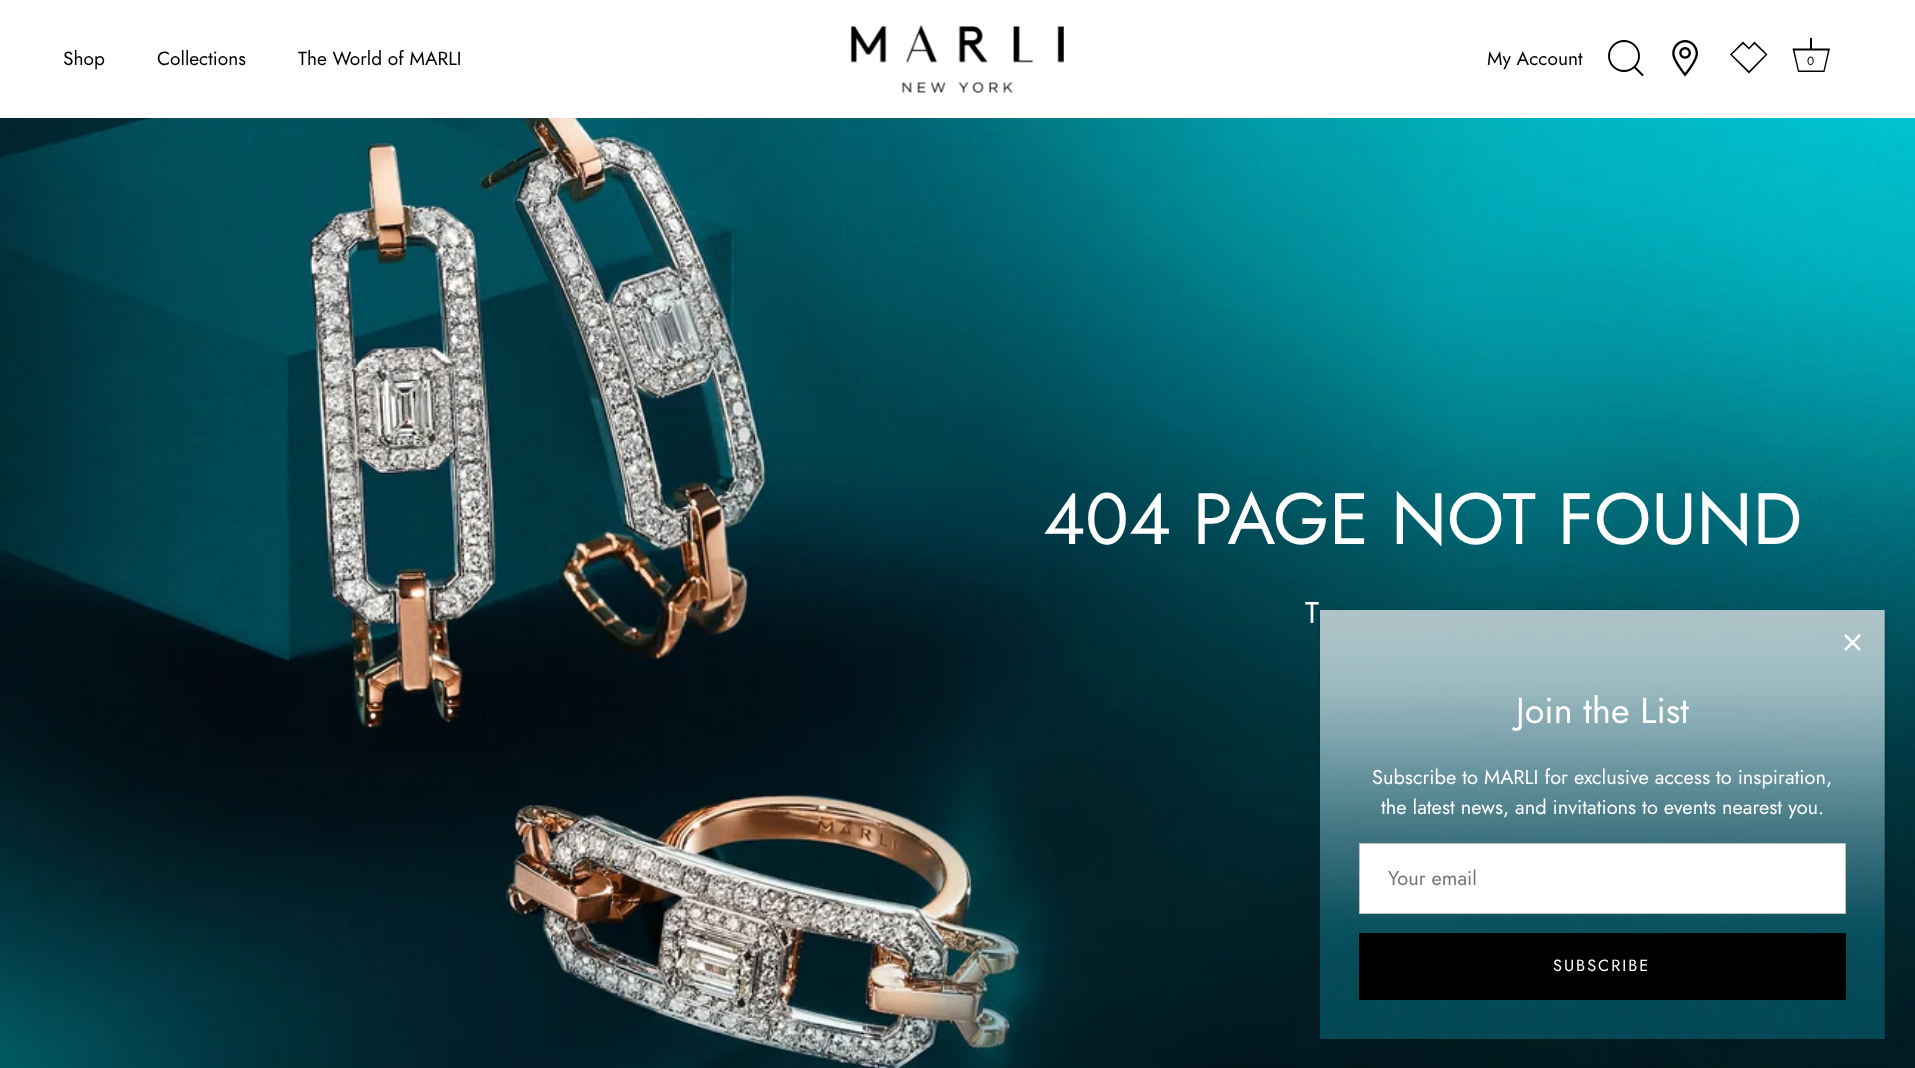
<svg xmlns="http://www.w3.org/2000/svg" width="1915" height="1068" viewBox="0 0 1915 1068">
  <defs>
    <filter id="blur1" x="-50%" y="-200%" width="200%" height="500%"><feGaussianBlur stdDeviation="2.5"/></filter>
  </defs>
  <rect width="100%" height="100%" fill="#ffffff"/>
  <text x="63" y="65" font-family="Jost" font-size="19.1" fill="#000000">Shop</text>
  <text x="157" y="65" font-family="Jost" font-size="19.1" fill="#000000">Collections</text>
  <text x="298" y="65" font-family="Jost" font-size="19.1" fill="#000000">The World of MARLI</text>
  <image x="850" y="25" width="214" height="68" href="img1.png"/>
  <text x="1487" y="65" font-family="Jost" font-size="19.1" fill="#000000">My Account</text>
  <circle cx="1624" cy="56" r="15" fill="none" stroke="#000000" stroke-width="1.9"/>
  <path d="M1642.5 75L1634.5 67" fill="none" stroke="#000000" stroke-width="1.9" stroke-linecap="round" stroke-linejoin="round"/>
  <image x="1672" y="40" width="26" height="37" href="img2.png"/>
  <path d="M1730 54.5L1743 41.5L1749 47.5L1754.5 41.5L1767.5 54.5L1749 73.5ZM1732 54.5L1749 71L1765.5 54.5L1754.5 44L1749 49.5L1743 44Z" fill="#000000"/>
  <path d="M1828 50.5L1823.5 70.5H1799L1794.5 50.5H1828M1830 48.5H1792.5L1798 72H1824.5Z" fill="#000000"/>
  <rect x="1810" y="38" width="2" height="11" fill="#000000"/>
  <text x="1807" y="65" font-family="Jost" font-size="12" fill="#000000">0</text>
  <image x="0" y="118" width="1915" height="950" href="img3.png"/>
  <text x="1043" y="544" font-family="Jost" font-size="72.5" fill="#ffffff">404 PAGE NOT FOUND</text>
  <text x="1305" y="623" font-family="Jost" font-size="30" fill="#ffffff">T</text>
  <rect x="1321" y="613" width="563" height="426" fill="#000000" fill-opacity="0.3" filter="url(#blur1)"/>
  <image x="1320" y="610" width="565" height="429" href="img4.png"/>
  <rect x="1320" y="610" width="565" height="429" fill="#000000" fill-opacity="0.13"/>
  <path d="M1860 635L1845 650M1845 635L1860 650" fill="none" stroke="#ffffff" stroke-width="2.5"/>
  <text x="1516" y="723" font-family="Jost" font-size="36" fill="#ffffff">Join the List</text>
  <text x="1372" y="784" font-family="Jost" font-size="20" fill="#ffffff">Subscribe to MARLI for exclusive access to inspiration,</text>
  <text x="1381" y="814" font-family="Jost" font-size="20" fill="#ffffff">the latest news, and invitations to events nearest you.</text>
  <rect x="1359.5" y="843.5" width="486" height="70" fill="#ffffff" stroke="#bfbfbf"/>
  <text x="1388" y="885" font-family="Jost" font-size="20" fill="#757575">Your email</text>
  <rect x="1359" y="933" width="487" height="67" fill="#000000"/>
  <text x="1553" y="971" font-family="Jost" font-size="16.25" letter-spacing="2" fill="#ffffff">SUBSCRIBE</text>
</svg>
